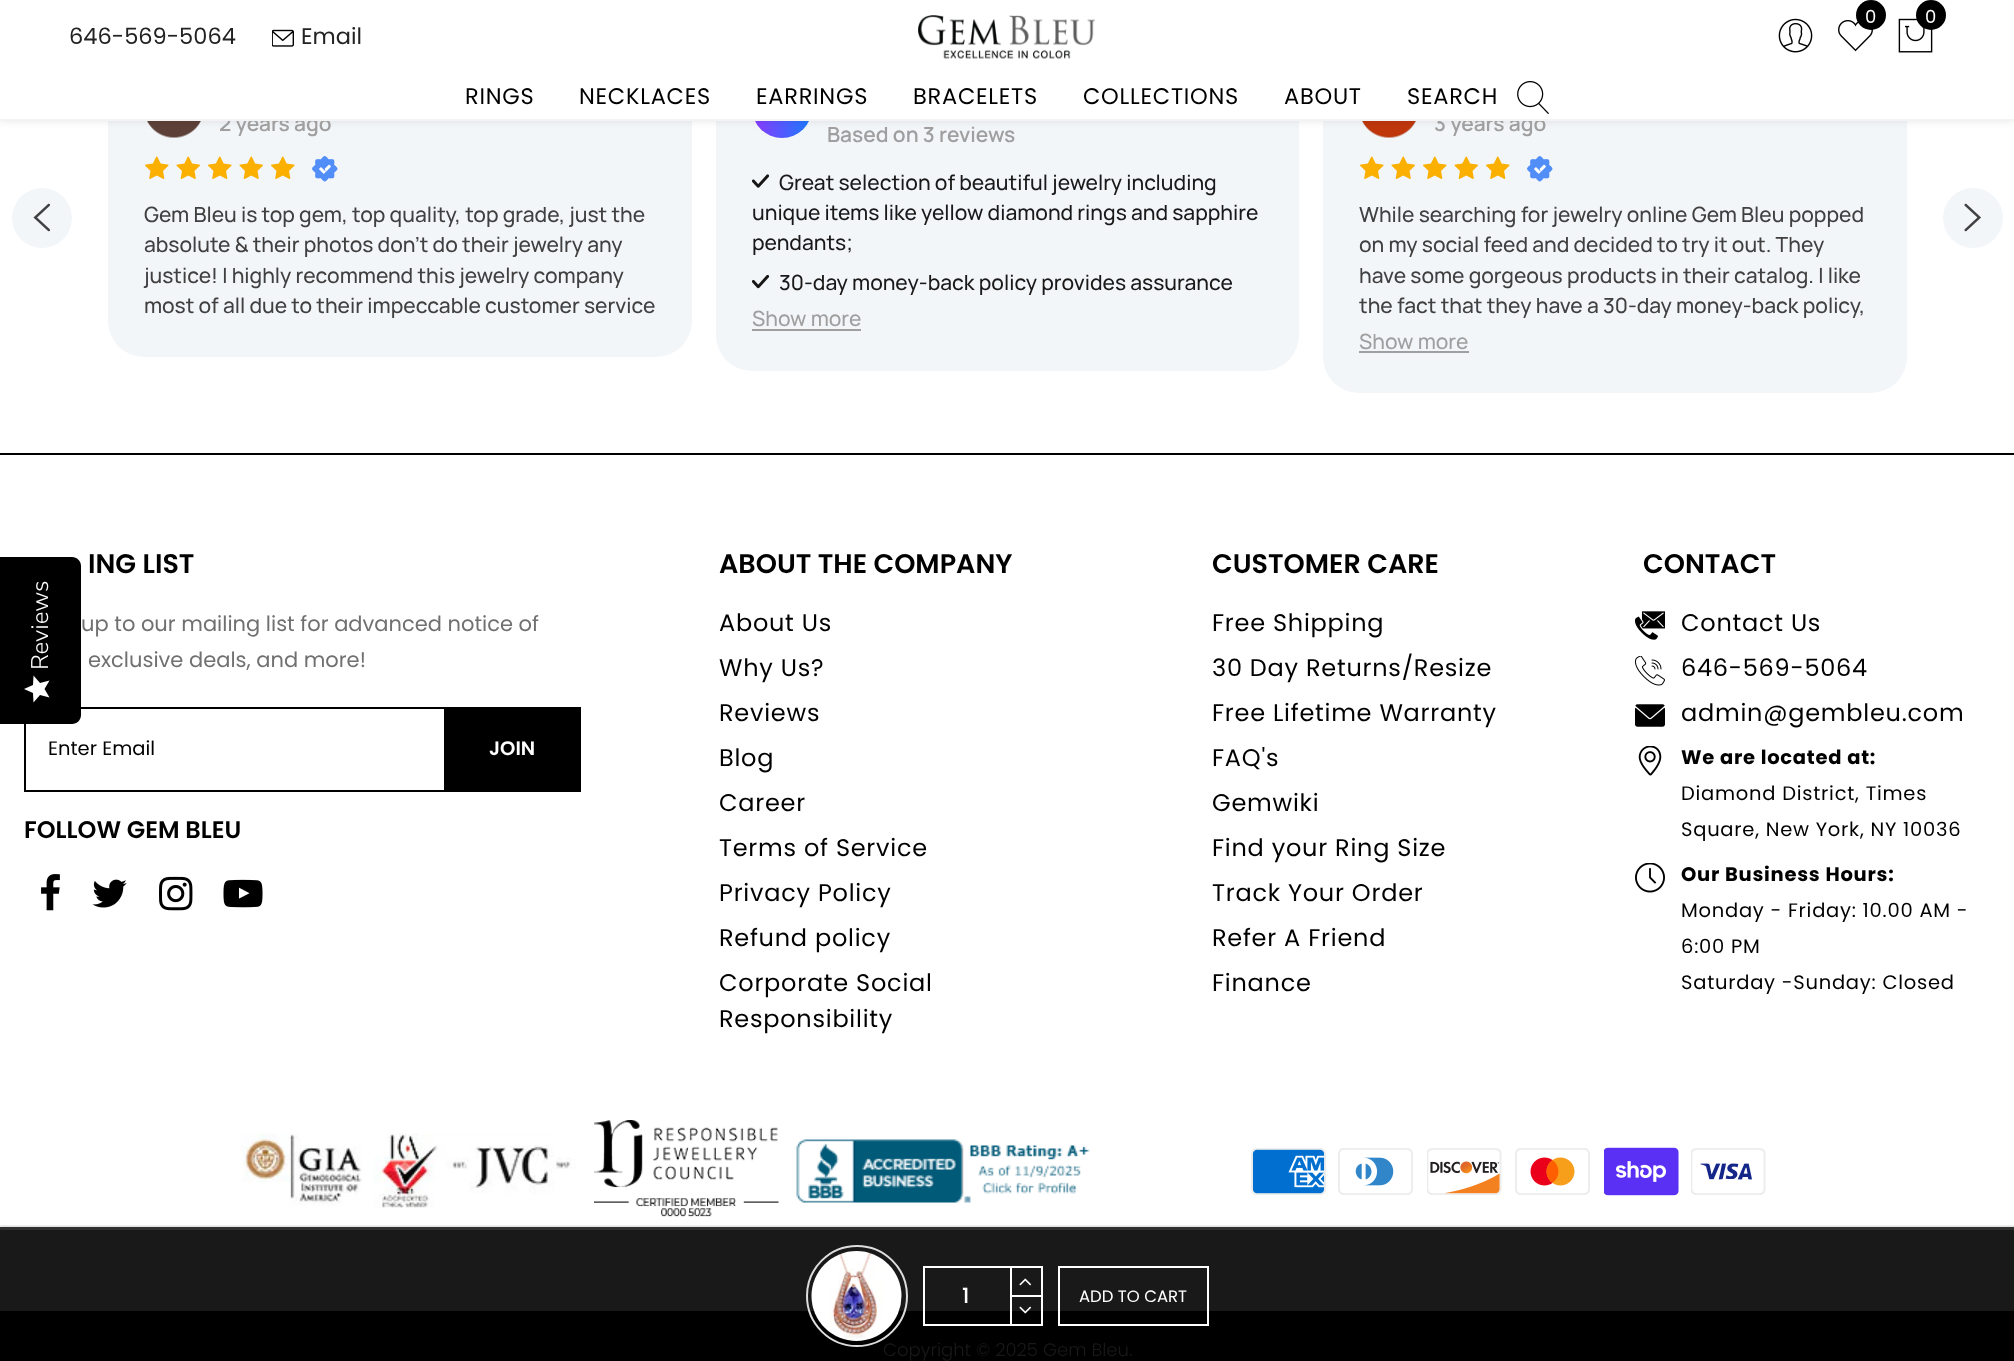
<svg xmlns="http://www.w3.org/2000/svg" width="2014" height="1361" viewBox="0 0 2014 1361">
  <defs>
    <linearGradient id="g1" gradientUnits="userSpaceOnUse" x1="752" y1="108" x2="812" y2="108"><stop offset="0" stop-color="#8d38ff"/><stop offset="1" stop-color="#197bff"/></linearGradient>
    <filter id="blur1" x="-50%" y="-200%" width="200%" height="500%"><feGaussianBlur stdDeviation="4"/></filter>
    <clipPath id="clip1"><rect x="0" y="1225" width="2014" height="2"/></clipPath>
    <filter id="blur2" x="-50%" y="-200%" width="200%" height="500%"><feGaussianBlur stdDeviation="1"/></filter>
    <linearGradient id="g2" gradientUnits="userSpaceOnUse" x1="24" y1="702" x2="24" y2="675"><stop offset="1" stop-color="#ffffff"/><stop offset="1" stop-color="#eaeaea"/></linearGradient>
  </defs>
  <rect width="100%" height="100%" fill="#ffffff"/>
  <rect x="0" y="1230" width="2014" height="81" fill="#191919"/>
  <rect x="108" y="42" width="584" height="315" rx="36" fill="#f3f6f9"/>
  <image x="147" y="121" width="54" height="17" href="img8.png"/>
  <rect x="716" y="42" width="583" height="329" rx="36" fill="#f3f6f9"/>
  <circle cx="782" cy="108" r="30" fill="url(#g1)"/>
  <rect x="1323" y="42" width="584" height="351" rx="36" fill="#f3f6f9"/>
  <image x="1362" y="121" width="54" height="17" href="img14.png"/>
  <rect x="0" y="0" width="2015" height="120" fill="#000000" fill-opacity="0.12" filter="url(#blur1)"/>
  <text x="219" y="131" font-family="Manrope" font-size="21" font-weight="600" fill="#9f9f9f">2 years ago</text>
  <text x="1434" y="131" font-family="Manrope" font-size="21" font-weight="600" fill="#9f9f9f">3 years ago</text>
  <rect x="0" y="0" width="2014" height="119" fill="#ffffff"/>
  <rect x="0" y="119" width="2014" height="2" fill="#f3f3f3"/>
  <text x="69" y="44" font-family="Poppins" font-size="22.5" fill="#222222">646-569-5064</text>
  <image x="272" y="29" width="22" height="18" href="img1.png"/>
  <text x="301" y="44" font-family="Poppins" font-size="22.5" fill="#222222">Email</text>
  <image x="918" y="15" width="177" height="44" href="img2.png"/>
  <image x="1838" y="20" width="35" height="32" href="img3.png"/>
  <circle cx="1871" cy="15" r="15" fill="#000000"/>
  <text x="1865" y="23" font-family="Poppins" font-size="18" fill="#ffffff">0</text>
  <image x="1898" y="18" width="35" height="35" href="img4.png"/>
  <circle cx="1931" cy="15" r="15" fill="#000000"/>
  <text x="1925" y="23" font-family="Poppins" font-size="18" fill="#ffffff">0</text>
  <image x="1778" y="18" width="35" height="35" href="img5.png"/>
  <text x="465" y="104" font-family="Poppins" font-size="22.5" letter-spacing="0.75" fill="#000000">RINGS</text>
  <text x="579" y="104" font-family="Poppins" font-size="22.5" letter-spacing="0.75" fill="#000000">NECKLACES</text>
  <text x="756" y="104" font-family="Poppins" font-size="22.5" letter-spacing="0.75" fill="#000000">EARRINGS</text>
  <text x="913" y="104" font-family="Poppins" font-size="22.5" letter-spacing="0.75" fill="#000000">BRACELETS</text>
  <text x="1083" y="104" font-family="Poppins" font-size="22.5" letter-spacing="0.75" fill="#000000">COLLECTIONS</text>
  <text x="1284" y="104" font-family="Poppins" font-size="22.5" letter-spacing="0.75" fill="#000000">ABOUT</text>
  <text x="1407" y="104" font-family="Poppins" font-size="22.5" letter-spacing="0.75" fill="#000000">SEARCH</text>
  <image x="1517" y="81" width="32" height="33" href="img6.png"/>
  <circle cx="42" cy="218" r="30" fill="#f3f6f9"/>
  <image x="33" y="203" width="17" height="29" href="img7.png"/>
  <image x="145" y="156" width="24" height="23" href="img9.png"/>
  <image x="176" y="156" width="24" height="23" href="img10.png"/>
  <image x="208" y="156" width="24" height="23" href="img9.png"/>
  <image x="239" y="156" width="24" height="23" href="img10.png"/>
  <image x="271" y="156" width="24" height="23" href="img9.png"/>
  <image x="312" y="156" width="26" height="26" href="img11.png"/>
  <text x="144" y="222" font-family="Manrope" font-size="21" font-weight="500" fill="#404040">Gem Bleu is top gem, top quality, top grade, just the</text>
  <text x="144" y="252" font-family="Manrope" font-size="21" font-weight="500" fill="#404040">absolute &amp; their photos don't do their jewelry any</text>
  <text x="144" y="283" font-family="Manrope" font-size="21" font-weight="500" fill="#404040">justice! I highly recommend this jewelry company</text>
  <text x="144" y="313" font-family="Manrope" font-size="21" font-weight="500" fill="#404040">most of all due to their impeccable customer service</text>
  <text x="827" y="142" font-family="Manrope" font-size="21" font-weight="600" fill="#9f9f9f">Based on 3 reviews</text>
  <image x="752" y="174" width="18" height="14" href="img12.png"/>
  <text x="779" y="190" font-family="Manrope" font-size="21" font-weight="500" fill="#191919">Great selection of beautiful jewelry including</text>
  <text x="752" y="220" font-family="Manrope" font-size="21" font-weight="500" fill="#191919">unique items like yellow diamond rings and sapphire</text>
  <text x="752" y="250" font-family="Manrope" font-size="21" font-weight="500" fill="#191919">pendants;</text>
  <image x="752" y="275" width="18" height="14" href="img13.png"/>
  <text x="779" y="290" font-family="Manrope" font-size="21" font-weight="500" fill="#191919">30-day money-back policy provides assurance</text>
  <text x="752" y="326" font-family="Manrope" font-size="21" font-weight="500" fill="#9f9f9f">Show more</text>
  <rect x="752" y="329" width="109" height="2" fill="#9f9f9f"/>
  <image x="1360" y="156" width="24" height="23" href="img9.png"/>
  <image x="1391" y="156" width="24" height="23" href="img10.png"/>
  <image x="1423" y="156" width="24" height="23" href="img9.png"/>
  <image x="1454" y="156" width="24" height="23" href="img10.png"/>
  <image x="1486" y="156" width="24" height="23" href="img9.png"/>
  <image x="1527" y="156" width="26" height="26" href="img11.png"/>
  <text x="1359" y="222" font-family="Manrope" font-size="21" font-weight="500" fill="#404040">While searching for jewelry online Gem Bleu popped</text>
  <text x="1359" y="252" font-family="Manrope" font-size="21" font-weight="500" fill="#404040">on my social feed and decided to try it out. They</text>
  <text x="1359" y="283" font-family="Manrope" font-size="21" font-weight="500" fill="#404040">have some gorgeous products in their catalog. I like</text>
  <text x="1359" y="313" font-family="Manrope" font-size="21" font-weight="500" fill="#404040">the fact that they have a 30-day money-back policy,</text>
  <text x="1359" y="349" font-family="Manrope" font-size="21" font-weight="500" fill="#9f9f9f">Show more</text>
  <rect x="1359" y="351" width="110" height="2" fill="#9f9f9f"/>
  <circle cx="1973" cy="218" r="30" fill="#f3f6f9"/>
  <image x="1964" y="203" width="17" height="29" href="img15.png"/>
  <rect x="0" y="453" width="2014" height="2" fill="#000000"/>
  <text x="88" y="573" font-family="Poppins" font-size="27" font-weight="600" fill="#000000">ING LIST</text>
  <text x="81" y="631" font-family="Poppins" font-size="21" fill="#707070">up to our mailing list for advanced notice of</text>
  <text x="88" y="667" font-family="Poppins" font-size="21" fill="#707070">exclusive deals, and more!</text>
  <rect x="25" y="708" width="555" height="83" fill="none" stroke="#000000" stroke-width="2"/>
  <text x="48" y="755" font-family="Poppins" font-size="19.5" fill="#000000">Enter Email</text>
  <rect x="444" y="709" width="135" height="81" fill="#000000"/>
  <text x="489" y="755" font-family="Poppins" font-size="19.5" font-weight="600" fill="#ffffff">JOIN</text>
  <text x="24" y="838" font-family="Poppins" font-size="24" font-weight="600" fill="#000000">FOLLOW GEM BLEU</text>
  <image x="41" y="874" width="19" height="37" href="img16.png"/>
  <image x="92" y="879" width="35" height="29" href="img17.png"/>
  <image x="159" y="876" width="34" height="35" href="img18.png"/>
  <image x="223" y="879" width="40" height="29" href="img19.png"/>
  <text x="719" y="573" font-family="Poppins" font-size="27" font-weight="600" fill="#000000">ABOUT THE COMPANY</text>
  <text x="719" y="631" font-family="Poppins" font-size="24" letter-spacing="0.75" fill="#000000">About Us</text>
  <text x="719" y="676" font-family="Poppins" font-size="24" letter-spacing="0.75" fill="#000000">Why Us?</text>
  <text x="719" y="721" font-family="Poppins" font-size="24" letter-spacing="0.75" fill="#000000">Reviews</text>
  <text x="719" y="766" font-family="Poppins" font-size="24" letter-spacing="0.75" fill="#000000">Blog</text>
  <text x="719" y="811" font-family="Poppins" font-size="24" letter-spacing="0.75" fill="#000000">Career</text>
  <text x="719" y="856" font-family="Poppins" font-size="24" letter-spacing="0.75" fill="#000000">Terms of Service</text>
  <text x="719" y="901" font-family="Poppins" font-size="24" letter-spacing="0.75" fill="#000000">Privacy Policy</text>
  <text x="719" y="946" font-family="Poppins" font-size="24" letter-spacing="0.75" fill="#000000">Refund policy</text>
  <text x="719" y="991" font-family="Poppins" font-size="24" letter-spacing="0.75" fill="#000000">Corporate Social</text>
  <text x="719" y="1027" font-family="Poppins" font-size="24" letter-spacing="0.75" fill="#000000">Responsibility</text>
  <text x="1212" y="573" font-family="Poppins" font-size="27" font-weight="600" fill="#000000">CUSTOMER CARE</text>
  <text x="1212" y="631" font-family="Poppins" font-size="24" letter-spacing="0.75" fill="#000000">Free Shipping</text>
  <text x="1212" y="676" font-family="Poppins" font-size="24" letter-spacing="0.75" fill="#000000">30 Day Returns/Resize</text>
  <text x="1212" y="721" font-family="Poppins" font-size="24" letter-spacing="0.75" fill="#000000">Free Lifetime Warranty</text>
  <text x="1212" y="766" font-family="Poppins" font-size="24" letter-spacing="0.75" fill="#000000">FAQ's</text>
  <text x="1212" y="811" font-family="Poppins" font-size="24" letter-spacing="0.75" fill="#000000">Gemwiki</text>
  <text x="1212" y="856" font-family="Poppins" font-size="24" letter-spacing="0.75" fill="#000000">Find your Ring Size</text>
  <text x="1212" y="901" font-family="Poppins" font-size="24" letter-spacing="0.75" fill="#000000">Track Your Order</text>
  <text x="1212" y="946" font-family="Poppins" font-size="24" letter-spacing="0.75" fill="#000000">Refer A Friend</text>
  <text x="1212" y="991" font-family="Poppins" font-size="24" letter-spacing="0.75" fill="#000000">Finance</text>
  <text x="1643" y="573" font-family="Poppins" font-size="27" font-weight="600" fill="#000000">CONTACT</text>
  <image x="1635" y="611" width="30" height="29" href="img20.png"/>
  <text x="1681" y="631" font-family="Poppins" font-size="24" letter-spacing="0.75" fill="#000000">Contact Us</text>
  <image x="1635" y="656" width="30" height="30" href="img21.png"/>
  <text x="1681" y="676" font-family="Poppins" font-size="24" letter-spacing="0.75" fill="#000000">646-569-5064</text>
  <image x="1635" y="704" width="30" height="23" href="img22.png"/>
  <text x="1681" y="721" font-family="Poppins" font-size="24" letter-spacing="0.75" fill="#000000">admin@gembleu.com</text>
  <image x="1638" y="746" width="24" height="30" href="img23.png"/>
  <text x="1681" y="764" font-family="Poppins" font-size="19.5" font-weight="bold" letter-spacing="0.75" fill="#000000">We are located at:</text>
  <text x="1681" y="800" font-family="Poppins" font-size="19.5" letter-spacing="0.75" fill="#000000">Diamond District, Times</text>
  <text x="1681" y="836" font-family="Poppins" font-size="19.5" letter-spacing="0.75" fill="#000000">Square, New York, NY 10036</text>
  <image x="1635" y="863" width="30" height="30" href="img24.png"/>
  <text x="1681" y="881" font-family="Poppins" font-size="19.5" font-weight="bold" letter-spacing="0.75" fill="#000000">Our Business Hours:</text>
  <text x="1681" y="917" font-family="Poppins" font-size="19.5" letter-spacing="0.75" fill="#000000">Monday - Friday: 10.00 AM -</text>
  <text x="1681" y="953" font-family="Poppins" font-size="19.5" letter-spacing="0.75" fill="#000000">6:00 PM</text>
  <text x="1681" y="989" font-family="Poppins" font-size="19.5" letter-spacing="0.75" fill="#000000">Saturday -Sunday: Closed</text>
  <image x="241" y="1133" width="335" height="75" href="img25.png"/>
  <image x="594" y="1120" width="185" height="97" href="img26.png"/>
  <image x="796" y="1139" width="294" height="64" href="img27.png"/>
  <image x="1251" y="1148" width="75" height="47" href="img28.png"/>
  <image x="1338" y="1148" width="75" height="47" href="img29.png"/>
  <image x="1427" y="1148" width="75" height="47" href="img30.png"/>
  <image x="1515" y="1148" width="75" height="47" href="img31.png"/>
  <image x="1604" y="1147" width="75" height="49" href="img32.png"/>
  <image x="1691" y="1148" width="75" height="47" href="img33.png"/>
  <rect x="0" y="1311" width="2014" height="50" fill="#000000"/>
  <text x="883" y="1356" font-family="Poppins" font-size="18" font-weight="300" fill="#191919">Copyright © 2025 Gem Bleu.</text>
  <g clip-path="url(#clip1)">
    <rect x="0" y="1226" width="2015" height="135" fill="#292929" fill-opacity="0.2" filter="url(#blur2)"/>
  </g>
  <rect x="0" y="1227" width="2014" height="3" fill="#303030"/>
  <circle cx="857" cy="1296" r="50" fill="none" stroke="#dddddd" stroke-width="2"/>
  <image x="811" y="1251" width="91" height="90" href="img34.png"/>
  <rect x="924" y="1267" width="118" height="58" fill="none" stroke="#ffffff" stroke-width="2"/>
  <rect x="1010" y="1268" width="2" height="57" fill="#ffffff"/>
  <text x="962" y="1303" font-family="Poppins" font-size="21" font-weight="500" fill="#ffffff">1</text>
  <rect x="1011" y="1295" width="30" height="2" fill="#ffffff"/>
  <image x="1019" y="1278" width="13" height="8" href="img35.png"/>
  <image x="1019" y="1306" width="13" height="8" href="img36.png"/>
  <rect x="1059" y="1267" width="149" height="58" fill="none" stroke="#ffffff" stroke-width="2"/>
  <text x="1079" y="1302" font-family="Poppins" font-size="16.5" fill="#ffffff">ADD TO CART</text>
  <path d="M0 724V557H72C77 557 81 561 81 566V715C81 720 77 724 72 724Z" fill="#000000"/>
  <text x="48" y="670" transform="rotate(-90 48 670)" font-family="Nunito Sans" font-size="24" font-weight="300" fill="#ffffff">Reviews</text>
  <path d="M44.5 689L49.5 680.5L40 683L33.5 675.5L33 685L24 689L33 693L33.5 702.5L40 695L49.5 697.5Z" fill="url(#g2)"/>
</svg>
